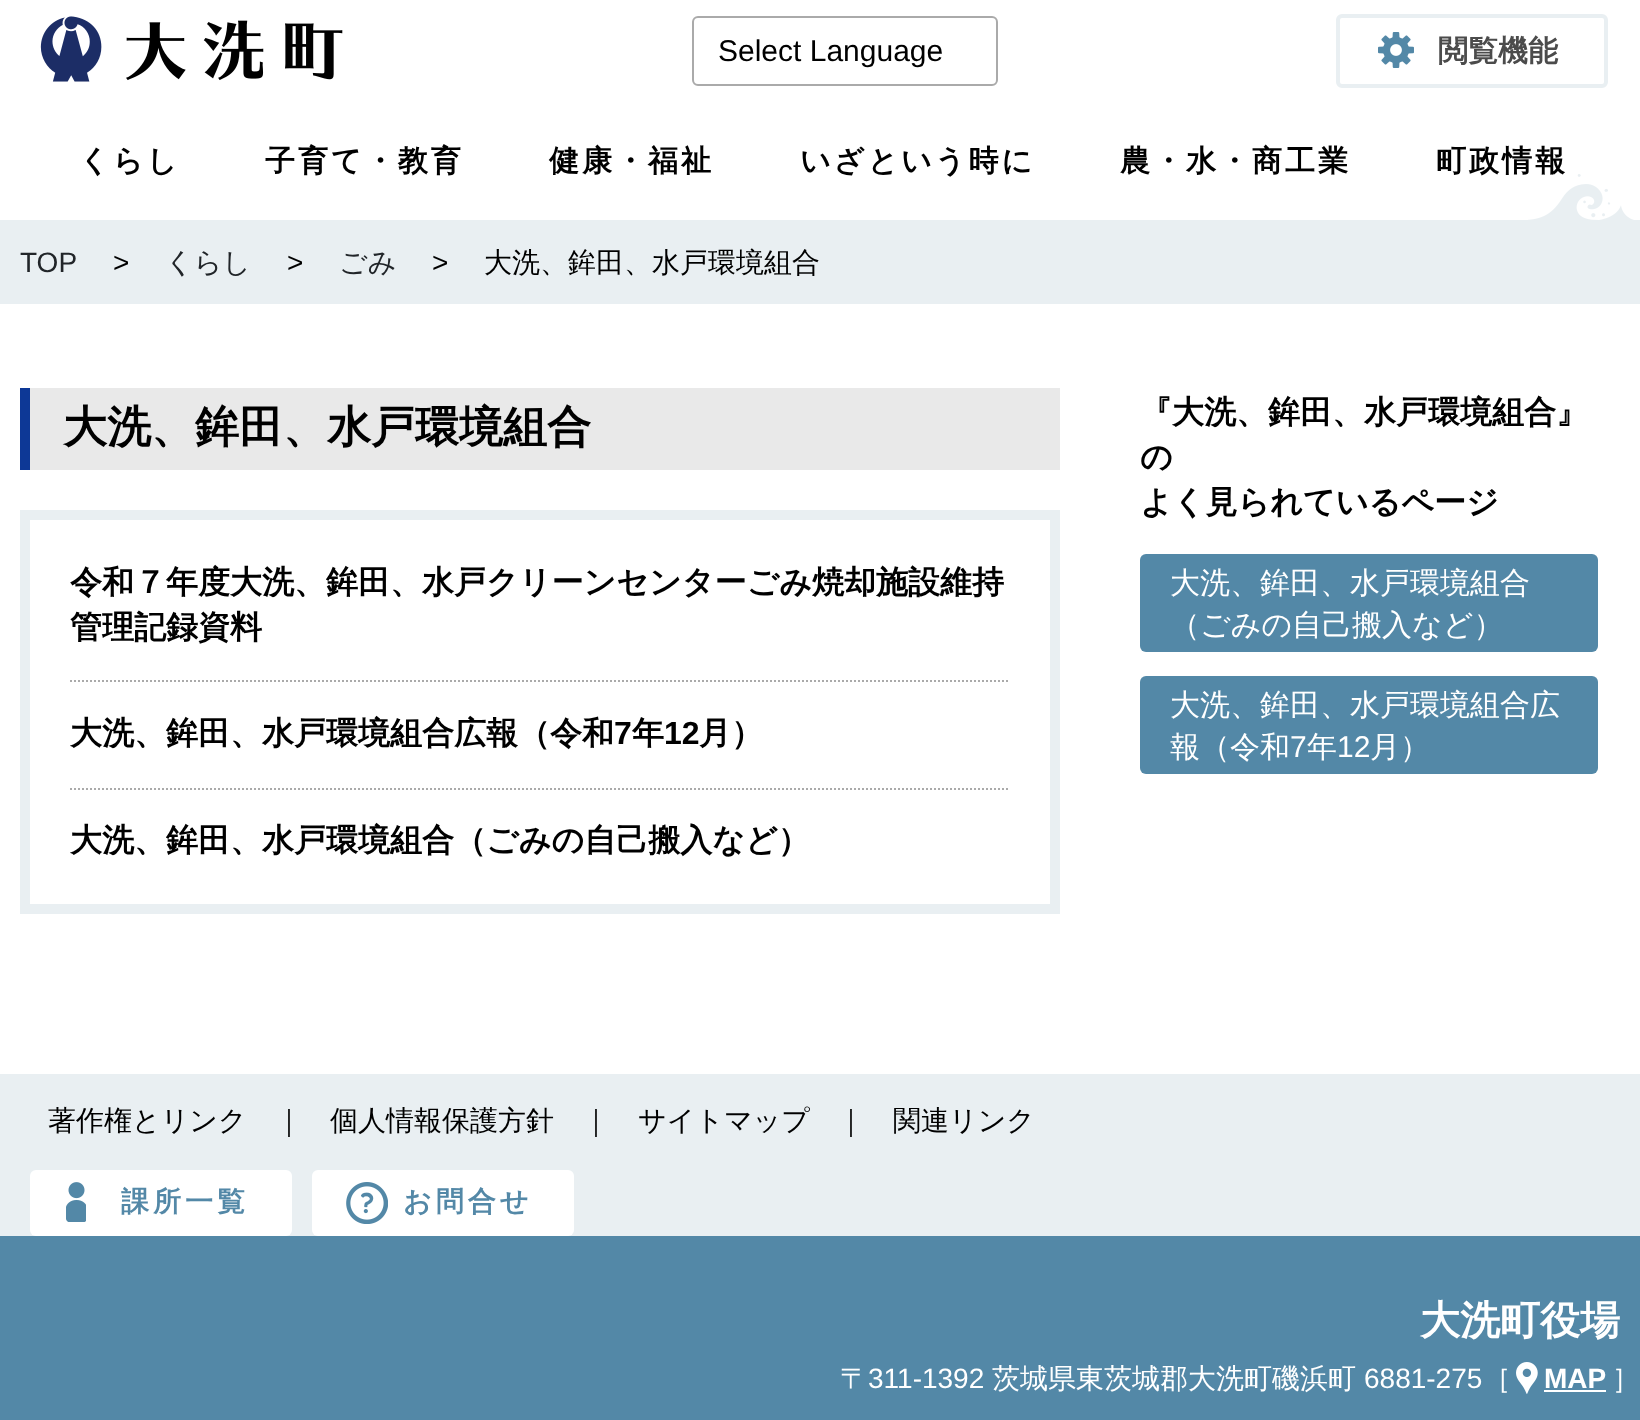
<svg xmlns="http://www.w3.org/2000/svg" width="1640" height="1420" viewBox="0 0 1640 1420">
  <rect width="100%" height="100%" fill="#ffffff"/>
  <image x="40" y="16" width="303" height="66" href="img1.png"/>
  <rect x="693" y="17" width="304" height="68" rx="5" fill="none" stroke="#aaaaaa" stroke-width="2"/>
  <text x="718" y="61" font-family="Liberation Sans" font-size="30" fill="#000000">Select Language</text>
  <image x="1378" y="32" width="36" height="36" href="img2.png"/>
  <rect x="1338" y="16" width="268" height="70" rx="4" fill="none" stroke="#e9eff2" stroke-width="4"/>
  <text x="1438" y="61" font-family="WenQuanYi Zen Hei" font-size="30" font-weight="bold" fill="#4b4b4b">閲覧機能</text>
  <text x="79" y="171" font-family="WenQuanYi Zen Hei" font-size="30" font-weight="bold" letter-spacing="3" fill="#000000">くらし</text>
  <text x="265" y="171" font-family="WenQuanYi Zen Hei" font-size="30" font-weight="bold" letter-spacing="3" fill="#000000">子育て・教育</text>
  <text x="549" y="171" font-family="WenQuanYi Zen Hei" font-size="30" font-weight="bold" letter-spacing="3" fill="#000000">健康・福祉</text>
  <text x="800" y="171" font-family="WenQuanYi Zen Hei" font-size="30" font-weight="bold" letter-spacing="3" fill="#000000">いざという時に</text>
  <text x="1120" y="171" font-family="WenQuanYi Zen Hei" font-size="30" font-weight="bold" letter-spacing="3" fill="#000000">農・水・商工業</text>
  <text x="1436" y="171" font-family="WenQuanYi Zen Hei" font-size="30" font-weight="bold" letter-spacing="3" fill="#000000">町政情報</text>
  <image x="1528" y="174" width="106" height="46" href="img3.png"/>
  <rect x="0" y="220" width="1640" height="84" fill="#e9eff2"/>
  <text x="20" y="272" font-family="Liberation Sans" font-size="28" fill="#212529">TOP</text>
  <text x="113" y="272" font-family="Liberation Sans" font-size="28" fill="#000000">&gt;</text>
  <text x="165" y="272" font-family="WenQuanYi Zen Hei" font-size="28" font-weight="500" fill="#212529">くらし</text>
  <text x="287" y="272" font-family="Liberation Sans" font-size="28" fill="#000000">&gt;</text>
  <text x="339" y="272" font-family="WenQuanYi Zen Hei" font-size="28" font-weight="500" fill="#212529">ごみ</text>
  <text x="432" y="272" font-family="Liberation Sans" font-size="28" fill="#000000">&gt;</text>
  <text x="484" y="272" font-family="WenQuanYi Zen Hei" font-size="28" font-weight="500" fill="#000000">大洗、鉾田、水戸環境組合</text>
  <rect x="30" y="388" width="1030" height="82" fill="#e9e9e9"/>
  <rect x="20" y="388" width="10" height="82" fill="#0d3896"/>
  <text x="63" y="442" font-family="WenQuanYi Zen Hei" font-size="44" font-weight="bold" fill="#000000">大洗、鉾田、水戸環境組合</text>
  <rect x="25" y="515" width="1030" height="394" fill="none" stroke="#e9eff2" stroke-width="10"/>
  <path d="M70 681H1010" fill="none" stroke="#aaaaaa" stroke-width="2" stroke-dasharray="2 2"/>
  <text x="70" y="593" font-family="WenQuanYi Zen Hei" font-size="32" font-weight="bold" fill="#000000">令和７年度大洗、鉾田、水戸クリーンセンターごみ焼却施設維持</text>
  <text x="70" y="638" font-family="WenQuanYi Zen Hei" font-size="32" font-weight="bold" fill="#000000">管理記録資料</text>
  <path d="M70 789H1010" fill="none" stroke="#aaaaaa" stroke-width="2" stroke-dasharray="2 2"/>
  <text x="70" y="744" font-family="WenQuanYi Zen Hei" font-size="32" font-weight="bold" fill="#000000">大洗、鉾田、水戸環境組合広報（令和</text>
  <text x="614" y="744" font-family="Liberation Sans" font-size="32" font-weight="bold" fill="#000000">7</text>
  <text x="632" y="744" font-family="WenQuanYi Zen Hei" font-size="32" font-weight="bold" fill="#000000">年</text>
  <text x="664" y="744" font-family="Liberation Sans" font-size="32" font-weight="bold" fill="#000000">12</text>
  <text x="699" y="744" font-family="WenQuanYi Zen Hei" font-size="32" font-weight="bold" fill="#000000">月）</text>
  <text x="70" y="851" font-family="WenQuanYi Zen Hei" font-size="32" font-weight="bold" fill="#000000">大洗、鉾田、水戸環境組合（ごみの自己搬入など）</text>
  <text x="1140" y="423" font-family="WenQuanYi Zen Hei" font-size="32" font-weight="bold" fill="#000000">『大洗、鉾田、水戸環境組合』</text>
  <text x="1140" y="468" font-family="WenQuanYi Zen Hei" font-size="32" font-weight="bold" fill="#000000">の</text>
  <text x="1140" y="513" font-family="WenQuanYi Zen Hei" font-size="32" font-weight="bold" fill="#000000">よく見られているページ</text>
  <rect x="1140" y="554" width="458" height="98" rx="6" fill="#5388a7"/>
  <text x="1170" y="593" font-family="WenQuanYi Zen Hei" font-size="30" font-weight="500" fill="#ffffff">大洗、鉾田、水戸環境組合</text>
  <text x="1170" y="635" font-family="WenQuanYi Zen Hei" font-size="30" font-weight="500" fill="#ffffff">（ごみの自己搬入など）</text>
  <rect x="1140" y="676" width="458" height="98" rx="6" fill="#5388a7"/>
  <text x="1170" y="715" font-family="WenQuanYi Zen Hei" font-size="30" font-weight="500" fill="#ffffff">大洗、鉾田、水戸環境組合広</text>
  <text x="1170" y="757" font-family="WenQuanYi Zen Hei" font-size="30" font-weight="500" fill="#ffffff">報（令和</text>
  <text x="1290" y="757" font-family="Liberation Sans" font-size="30" fill="#ffffff">7</text>
  <text x="1307" y="757" font-family="WenQuanYi Zen Hei" font-size="30" font-weight="500" fill="#ffffff">年</text>
  <text x="1337" y="757" font-family="Liberation Sans" font-size="30" fill="#ffffff">12</text>
  <text x="1370" y="757" font-family="WenQuanYi Zen Hei" font-size="30" font-weight="500" fill="#ffffff">月）</text>
  <rect x="0" y="1236" width="1640" height="184" fill="#5388a7"/>
  <rect x="0" y="1074" width="1640" height="162" fill="#e9eff2"/>
  <text x="48" y="1130" font-family="WenQuanYi Zen Hei" font-size="28" font-weight="500" fill="#000000">著作権とリンク</text>
  <text x="275" y="1130" font-family="WenQuanYi Zen Hei" font-size="28" font-weight="500" fill="#000000">｜</text>
  <text x="330" y="1130" font-family="WenQuanYi Zen Hei" font-size="28" font-weight="500" fill="#000000">個人情報保護方針</text>
  <text x="582" y="1130" font-family="WenQuanYi Zen Hei" font-size="28" font-weight="500" fill="#000000">｜</text>
  <text x="638" y="1130" font-family="WenQuanYi Zen Hei" font-size="28" font-weight="500" fill="#000000">サイトマップ</text>
  <text x="837" y="1130" font-family="WenQuanYi Zen Hei" font-size="28" font-weight="500" fill="#000000">｜</text>
  <text x="893" y="1130" font-family="WenQuanYi Zen Hei" font-size="28" font-weight="500" fill="#000000">関連リンク</text>
  <rect x="30" y="1170" width="262" height="66" rx="6" fill="#ffffff"/>
  <image x="66" y="1182" width="20" height="40" href="img4.png"/>
  <text x="121" y="1211" font-family="WenQuanYi Zen Hei" font-size="28" font-weight="bold" letter-spacing="4" fill="#5388a7">課所一覧</text>
  <rect x="312" y="1170" width="262" height="66" rx="6" fill="#ffffff"/>
  <image x="346" y="1182" width="42" height="42" href="img5.png"/>
  <text x="403" y="1211" font-family="WenQuanYi Zen Hei" font-size="28" font-weight="bold" letter-spacing="4" fill="#5388a7">お問合せ</text>
  <text x="1420" y="1334" font-family="WenQuanYi Zen Hei" font-size="40" font-weight="bold" fill="#ffffff">大洗町役場</text>
  <text x="840" y="1388" font-family="WenQuanYi Zen Hei" font-size="28" font-weight="500" fill="#ffffff">〒</text>
  <text x="868" y="1388" font-family="Liberation Sans" font-size="28" fill="#ffffff">311-1392</text>
  <text x="992" y="1388" font-family="WenQuanYi Zen Hei" font-size="28" font-weight="500" fill="#ffffff">茨城県東茨城郡大洗町磯浜町</text>
  <text x="1364" y="1388" font-family="Liberation Sans" font-size="28" fill="#ffffff">6881-275</text>
  <text x="1483" y="1388" font-family="WenQuanYi Zen Hei" font-size="28" font-weight="500" fill="#ffffff">［</text>
  <image x="1516" y="1362" width="22" height="32" href="img6.png"/>
  <text x="1544" y="1388" font-family="Liberation Sans" font-size="28" font-weight="bold" fill="#ffffff">MAP</text>
  <rect x="1544" y="1390" width="62" height="2" fill="#ffffff"/>
  <text x="1612" y="1388" font-family="WenQuanYi Zen Hei" font-size="28" font-weight="500" fill="#ffffff">］</text>
</svg>
